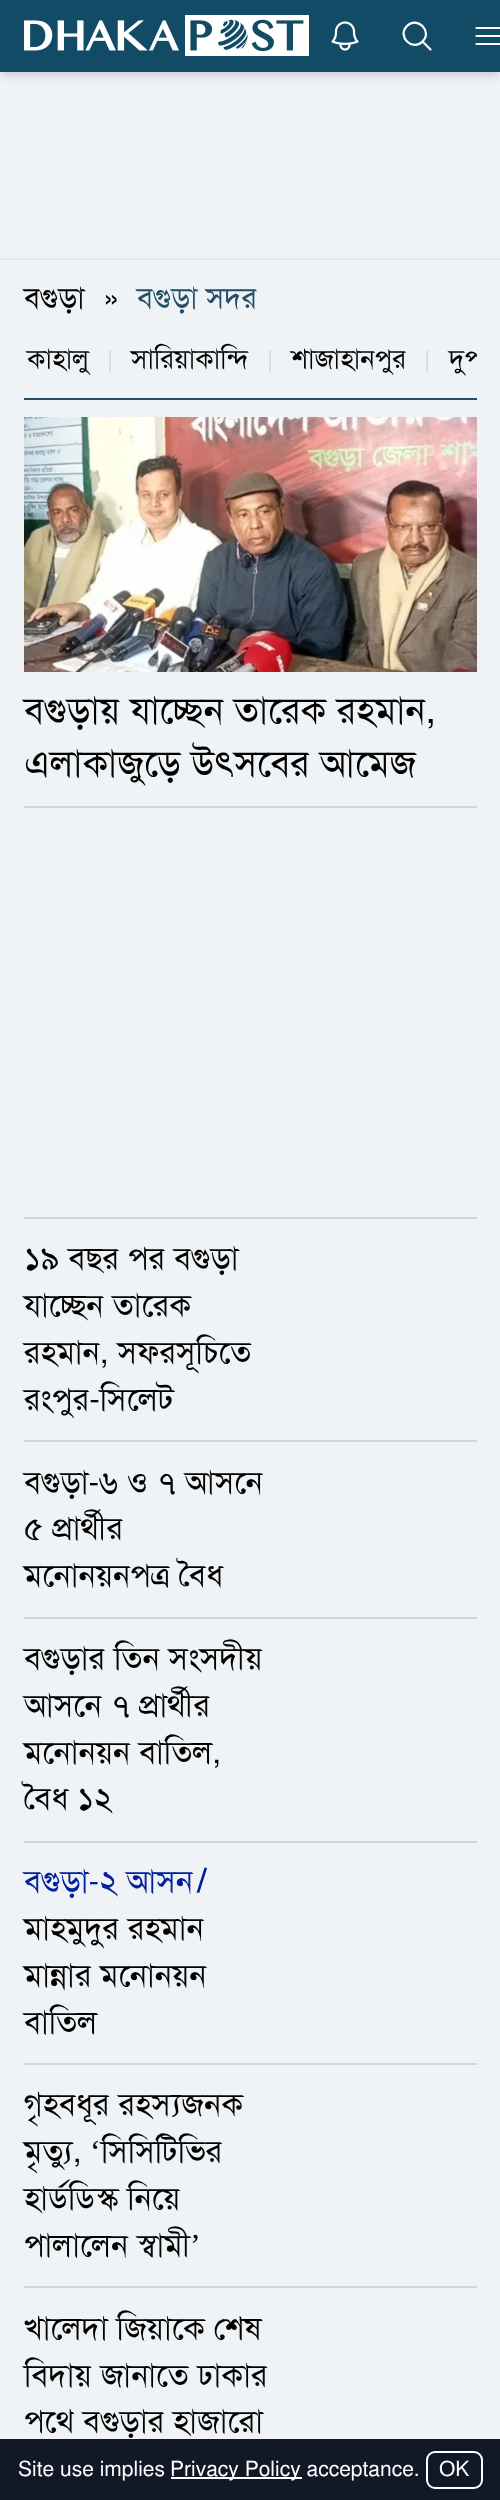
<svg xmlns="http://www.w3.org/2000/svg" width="500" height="2500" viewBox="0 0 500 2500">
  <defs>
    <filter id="blur1" x="-50%" y="-200%" width="200%" height="500%"><feGaussianBlur stdDeviation="3"/></filter>
    <filter id="blur2" x="-50%" y="-200%" width="200%" height="500%"><feGaussianBlur stdDeviation="4.5"/></filter>
    <clipPath id="clip1"><rect x="24" y="338" width="453" height="60"/></clipPath>
  </defs>
  <rect width="100%" height="100%" fill="#eff3f6"/>
  <rect x="3" y="6" width="495" height="66" fill="#000000" fill-opacity="0.1" filter="url(#blur1)"/>
  <rect x="2" y="8" width="498" height="69" fill="#000000" fill-opacity="0.1" filter="url(#blur2)"/>
  <rect x="0" y="0" width="500" height="72" fill="#124b65"/>
  <image x="24" y="15" width="285" height="41" href="img1.png"/>
  <image x="331" y="21" width="28" height="30" href="img2.png"/>
  <path d="M430.5 49.5L422.5 41.5M422.5 41.5C433 31.5 417 15.5 407 26C396.5 36 412.5 52 422.5 41.5Z" fill="none" stroke="#ffffff" stroke-width="2.2" stroke-linecap="round" stroke-linejoin="round"/>
  <path d="M476.5 28H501.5M476.5 36H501.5M476.5 44H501.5" fill="none" stroke="#ffffff" stroke-width="2.2" stroke-linecap="round" stroke-linejoin="round"/>
  <rect x="0" y="258" width="500" height="2" fill="#e5e7eb"/>
  <rect x="24" y="398" width="453" height="2" fill="#234e67"/>
  <text x="24" y="308" font-family="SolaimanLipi" font-size="30" fill="#000000">বগুড়া</text>
  <text x="103" y="308" font-family="SolaimanLipi" font-size="30" fill="#000000">»</text>
  <text x="137" y="308" font-family="SolaimanLipi" font-size="30" fill="#234e67">বগুড়া সদর</text>
  <text x="27" y="368" font-family="SolaimanLipi" font-size="27" fill="#000000">কাহালু</text>
  <text x="107" y="368" font-family="SolaimanLipi" font-size="24" fill="#d5d4d4">|</text>
  <text x="131" y="368" font-family="SolaimanLipi" font-size="27" fill="#000000">সারিয়াকান্দি</text>
  <text x="267" y="368" font-family="SolaimanLipi" font-size="24" fill="#d5d4d4">|</text>
  <text x="291" y="368" font-family="SolaimanLipi" font-size="27" fill="#000000">শাজাহানপুর</text>
  <text x="424" y="368" font-family="SolaimanLipi" font-size="24" fill="#d5d4d4">|</text>
  <g clip-path="url(#clip1)">
    <text x="449" y="368" font-family="SolaimanLipi" font-size="27" fill="#000000">দুপ</text>
  </g>
  <image x="24" y="417" width="453" height="255" href="img3.png"/>
  <text x="24" y="723" font-family="SolaimanLipi" font-size="37.5" fill="#000000">বগুড়ায় যাচ্ছেন তারেক রহমান,</text>
  <text x="24" y="776" font-family="SolaimanLipi" font-size="37.5" fill="#000000">এলাকাজুড়ে উৎসবের আমেজ</text>
  <rect x="24" y="806" width="453" height="2" fill="#d5d4d4"/>
  <rect x="24" y="1217" width="453" height="2" fill="#d5d4d4"/>
  <text x="24" y="1269" font-family="SolaimanLipi" font-size="32" fill="#000000">১৯ বছর পর বগুড়া</text>
  <text x="24" y="1316" font-family="SolaimanLipi" font-size="32" fill="#000000">যাচ্ছেন তারেক</text>
  <text x="24" y="1363" font-family="SolaimanLipi" font-size="32" fill="#000000">রহমান, সফরসূচিতে</text>
  <text x="24" y="1410" font-family="SolaimanLipi" font-size="32" fill="#000000">রংপুর-সিলেট</text>
  <rect x="24" y="1440" width="453" height="2" fill="#d5d4d4"/>
  <text x="24" y="1493" font-family="SolaimanLipi" font-size="32" fill="#000000">বগুড়া-৬ ও ৭ আসনে</text>
  <text x="24" y="1539" font-family="SolaimanLipi" font-size="32" fill="#000000">৫ প্রার্থীর</text>
  <text x="24" y="1586" font-family="SolaimanLipi" font-size="32" fill="#000000">মনোনয়নপত্র বৈধ</text>
  <rect x="24" y="1617" width="453" height="2" fill="#d5d4d4"/>
  <text x="24" y="1669" font-family="SolaimanLipi" font-size="32" fill="#000000">বগুড়ার তিন সংসদীয়</text>
  <text x="24" y="1716" font-family="SolaimanLipi" font-size="32" fill="#000000">আসনে ৭ প্রার্থীর</text>
  <text x="24" y="1763" font-family="SolaimanLipi" font-size="32" fill="#000000">মনোনয়ন বাতিল,</text>
  <text x="24" y="1809" font-family="SolaimanLipi" font-size="32" fill="#000000">বৈধ ১২</text>
  <rect x="24" y="1841" width="453" height="2" fill="#d5d4d4"/>
  <text x="24" y="1892" font-family="SolaimanLipi" font-size="32" fill="#00209d">বগুড়া-২ আসন</text>
  <text x="197" y="1892" font-family="SolaimanLipi" font-size="32" font-weight="bold" fill="#00209d">/</text>
  <text x="24" y="1939" font-family="SolaimanLipi" font-size="32" fill="#000000">মাহমুদুর রহমান</text>
  <text x="24" y="1986" font-family="SolaimanLipi" font-size="32" fill="#000000">মান্নার মনোনয়ন</text>
  <text x="24" y="2033" font-family="SolaimanLipi" font-size="32" fill="#000000">বাতিল</text>
  <rect x="24" y="2063" width="453" height="2" fill="#d5d4d4"/>
  <text x="24" y="2115" font-family="SolaimanLipi" font-size="32" fill="#000000">গৃহবধূর রহস্যজনক</text>
  <text x="24" y="2162" font-family="SolaimanLipi" font-size="32" fill="#000000">মৃত্যু,</text>
  <text x="90" y="2162" font-family="Liberation Serif" font-size="32" fill="#000000">‘</text>
  <text x="101" y="2162" font-family="SolaimanLipi" font-size="32" fill="#000000">সিসিটিভির</text>
  <text x="24" y="2209" font-family="SolaimanLipi" font-size="32" fill="#000000">হার্ডডিস্ক নিয়ে</text>
  <text x="24" y="2256" font-family="SolaimanLipi" font-size="32" fill="#000000">পালালেন স্বামী</text>
  <text x="190" y="2256" font-family="Liberation Serif" font-size="32" fill="#000000">’</text>
  <rect x="24" y="2286" width="453" height="2" fill="#d5d4d4"/>
  <text x="24" y="2339" font-family="SolaimanLipi" font-size="32" fill="#000000">খালেদা জিয়াকে শেষ</text>
  <text x="24" y="2386" font-family="SolaimanLipi" font-size="32" fill="#000000">বিদায় জানাতে ঢাকার</text>
  <text x="24" y="2432" font-family="SolaimanLipi" font-size="32" fill="#000000">পথে বগুড়ার হাজারো</text>
  <rect x="0" y="2439" width="500" height="61" fill="#111827"/>
  <text x="18" y="2476" font-family="SolaimanLipi" font-size="21" fill="#ffffff">Site use implies</text>
  <rect x="171" y="2477" width="131" height="2" fill="#ffffff"/>
  <text x="170" y="2476" font-family="SolaimanLipi" font-size="21" fill="#ffffff">Privacy Policy acceptance.</text>
  <rect x="427" y="2452" width="55" height="36" rx="8" fill="none" stroke="#ffffff" stroke-width="2"/>
  <text x="439" y="2476" font-family="SolaimanLipi" font-size="21" fill="#ffffff">OK</text>
</svg>
